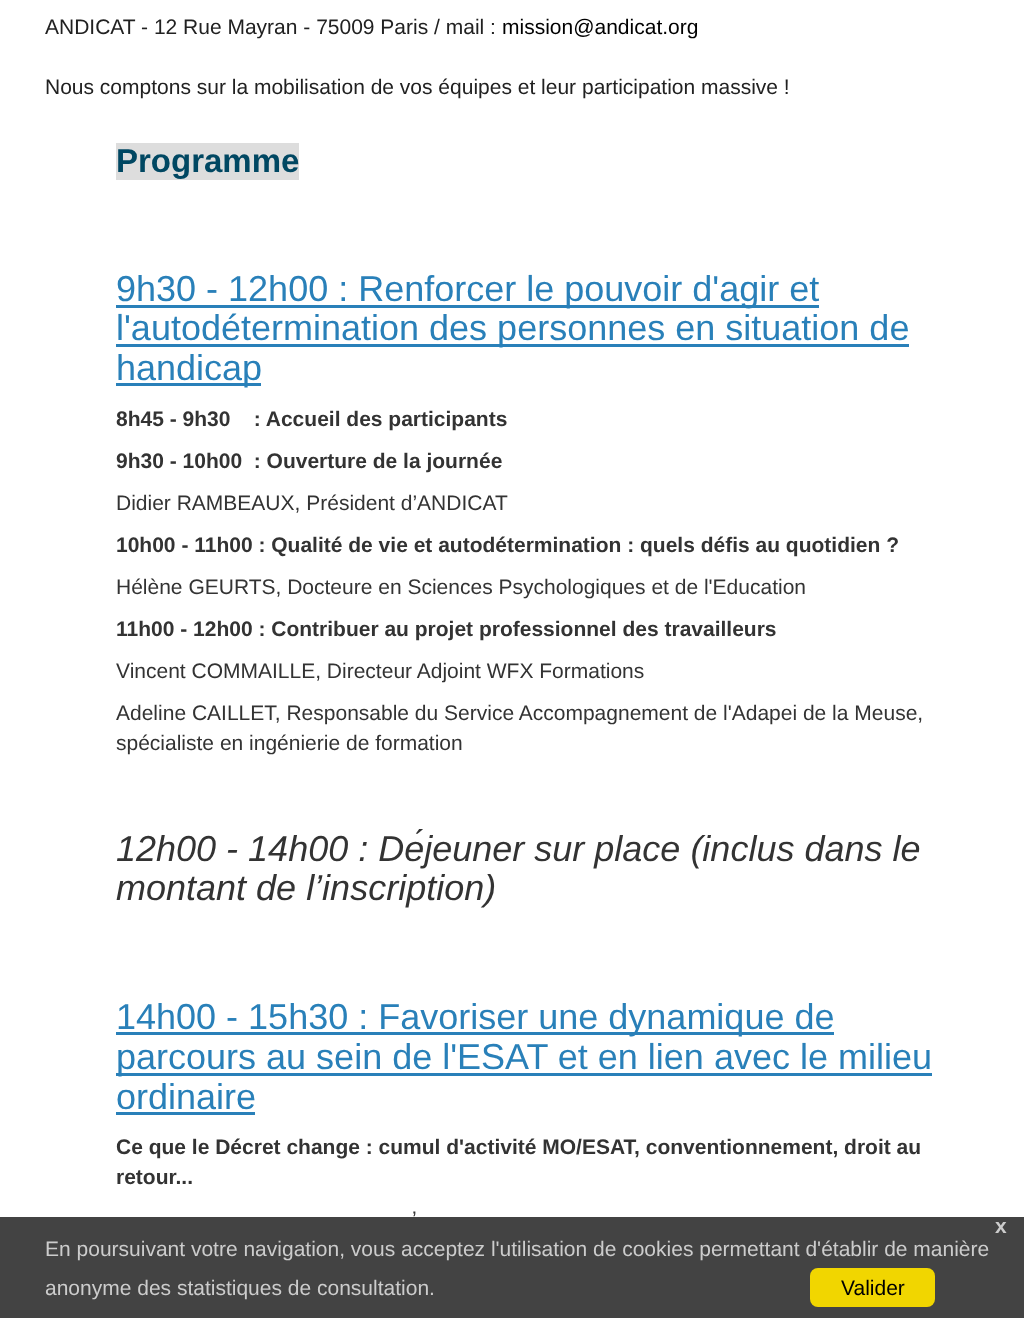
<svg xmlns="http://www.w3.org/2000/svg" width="1024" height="1318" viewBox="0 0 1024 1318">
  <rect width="100%" height="100%" fill="#ffffff"/>
  <text x="45" y="34" font-family="Liberation Sans" font-size="21" fill="#212121">ANDICAT - 12 Rue Mayran - 75009 Paris / mail :</text>
  <text x="502" y="34" font-family="Liberation Sans" font-size="21" fill="#000000">mission@andicat.org</text>
  <text x="45" y="94" font-family="Liberation Sans" font-size="21" fill="#212121">Nous comptons sur la mobilisation de vos équipes et leur participation massive !</text>
  <rect x="116" y="143" width="183" height="37" fill="#dddddd"/>
  <text x="116" y="172" font-family="Liberation Sans" font-size="33" font-weight="bold" fill="#004762">Programme</text>
  <rect x="116" y="305" width="703" height="3" fill="#2980b9"/>
  <text x="116" y="301" font-family="Liberation Sans" font-size="36" fill="#2980b9">9h30 - 12h00 : Renforcer le pouvoir d'agir et</text>
  <rect x="116" y="344" width="793" height="3" fill="#2980b9"/>
  <text x="116" y="340" font-family="Liberation Sans" font-size="36" fill="#2980b9">l'autodétermination des personnes en situation de</text>
  <rect x="116" y="383" width="145" height="3" fill="#2980b9"/>
  <text x="116" y="380" font-family="Liberation Sans" font-size="36" fill="#2980b9">handicap</text>
  <text x="116" y="426" font-family="Liberation Sans" font-size="21" font-weight="bold" fill="#333333" xml:space="preserve">8h45 - 9h30    : Accueil des participants</text>
  <text x="116" y="468" font-family="Liberation Sans" font-size="21" font-weight="bold" fill="#333333" xml:space="preserve">9h30 - 10h00  : Ouverture de la journée</text>
  <text x="116" y="510" font-family="Liberation Sans" font-size="21" fill="#333333">Didier RAMBEAUX, Président d’ANDICAT</text>
  <text x="116" y="552" font-family="Liberation Sans" font-size="21" font-weight="bold" fill="#333333">10h00 - 11h00 : Qualité de vie et autodétermination : quels défis au quotidien ?</text>
  <text x="116" y="594" font-family="Liberation Sans" font-size="21" fill="#333333">Hélène GEURTS, Docteure en Sciences Psychologiques et de l'Education</text>
  <text x="116" y="636" font-family="Liberation Sans" font-size="21" font-weight="bold" fill="#333333">11h00 - 12h00 : Contribuer au projet professionnel des travailleurs</text>
  <text x="116" y="678" font-family="Liberation Sans" font-size="21" fill="#333333">Vincent COMMAILLE, Directeur Adjoint WFX Formations</text>
  <text x="116" y="720" font-family="Liberation Sans" font-size="21" fill="#333333">Adeline CAILLET, Responsable du Service Accompagnement de l'Adapei de la Meuse,</text>
  <text x="116" y="750" font-family="Liberation Sans" font-size="21" fill="#333333">spécialiste en ingénierie de formation</text>
  <text x="116" y="861" font-family="Liberation Sans" font-size="36" font-style="italic" fill="#333333">12h00 - 14h00 : Déjeuner sur place (inclus dans le</text>
  <text x="116" y="900" font-family="Liberation Sans" font-size="36" font-style="italic" fill="#333333">montant de l’inscription)</text>
  <rect x="116" y="1032" width="718" height="3" fill="#2980b9"/>
  <text x="116" y="1029" font-family="Liberation Sans" font-size="36" fill="#2980b9">14h00 - 15h30 : Favoriser une dynamique de</text>
  <rect x="116" y="1073" width="816" height="3" fill="#2980b9"/>
  <text x="116" y="1069" font-family="Liberation Sans" font-size="36" fill="#2980b9">parcours au sein de l'ESAT et en lien avec le milieu</text>
  <text x="116" y="1109" font-family="Liberation Sans" font-size="36" fill="#2980b9">ordinaire</text>
  <rect x="116" y="1112" width="139" height="3" fill="#2980b9"/>
  <text x="116" y="1154" font-family="Liberation Sans" font-size="21" font-weight="bold" fill="#333333">Ce que le Décret change : cumul d'activité MO/ESAT, conventionnement, droit au</text>
  <text x="116" y="1184" font-family="Liberation Sans" font-size="21" font-weight="bold" fill="#333333">retour...</text>
  <text x="412" y="1226" font-family="Liberation Sans" font-size="21" fill="#333333">’</text>
  <rect x="0" y="1217" width="1024" height="101" fill="#141414" fill-opacity="0.8"/>
  <text x="995" y="1233" font-family="Liberation Sans" font-size="21" font-weight="bold" fill="#cccccc">x</text>
  <text x="45" y="1256" font-family="Liberation Sans" font-size="21" fill="#cccccc">En poursuivant votre navigation, vous acceptez l'utilisation de cookies permettant d'établir de manière</text>
  <text x="45" y="1295" font-family="Liberation Sans" font-size="21" fill="#cccccc">anonyme des statistiques de consultation.</text>
  <rect x="810" y="1268" width="125" height="39" rx="8" fill="#f1d600"/>
  <text x="841" y="1295" font-family="Liberation Sans" font-size="21" fill="#000000">Valider</text>
</svg>
